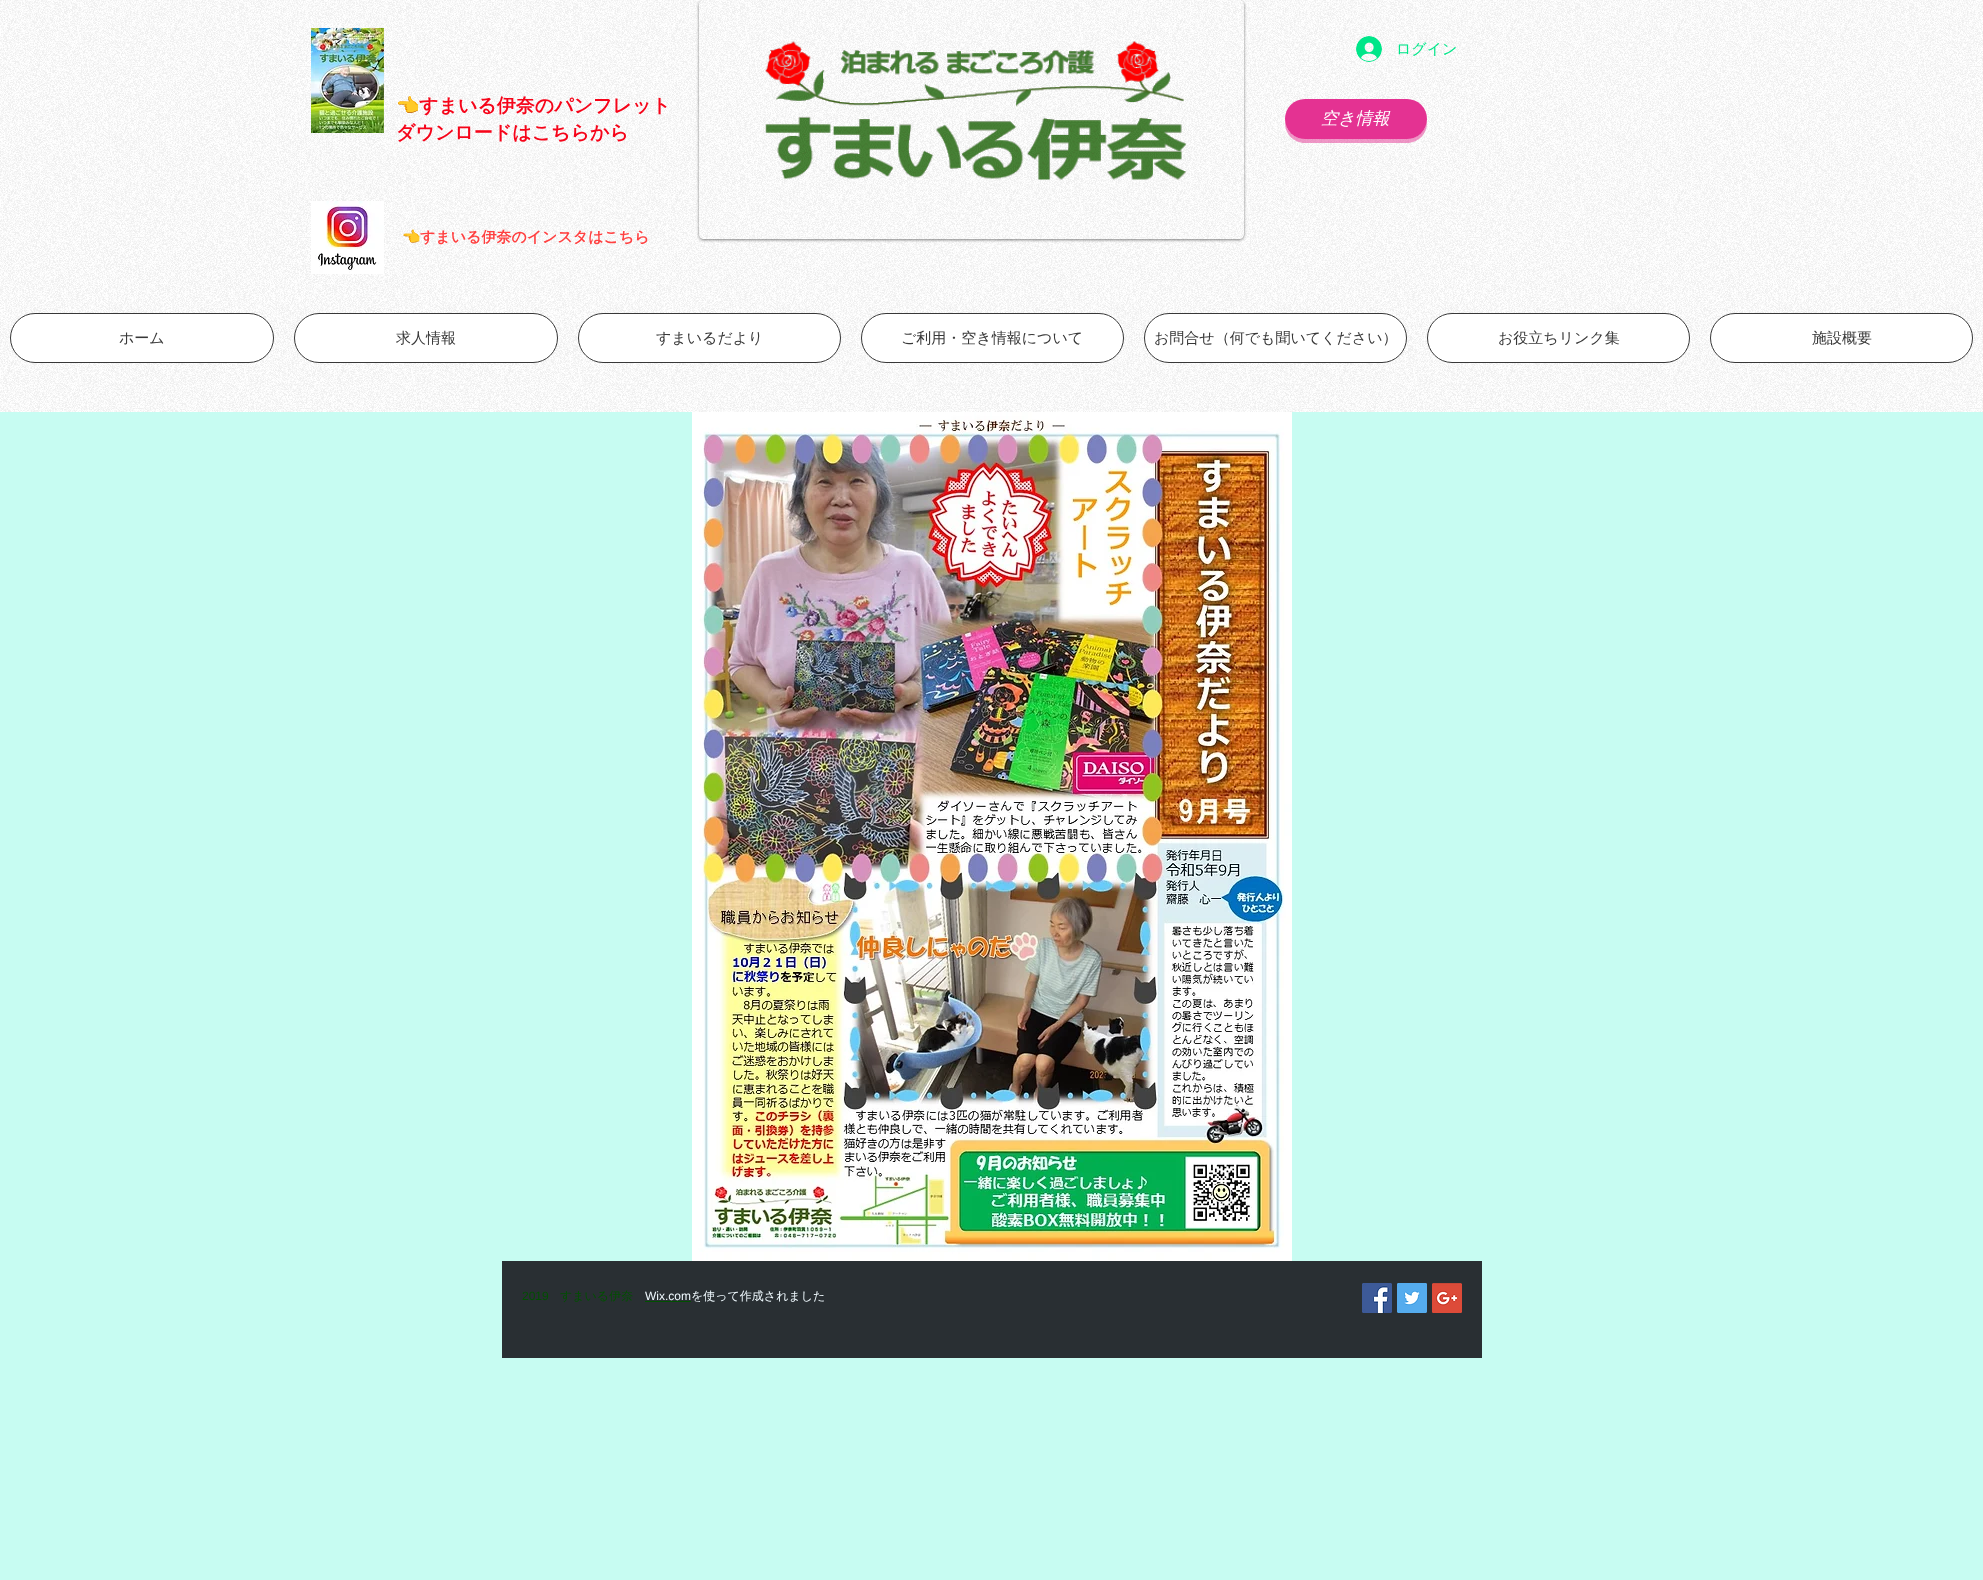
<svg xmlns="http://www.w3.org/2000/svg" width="1983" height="1580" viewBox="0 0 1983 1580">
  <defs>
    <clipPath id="clip1"><path d="M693 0H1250V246H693ZM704 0H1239C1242 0 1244 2 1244 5V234C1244 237 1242 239 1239 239H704C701 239 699 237 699 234V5C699 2 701 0 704 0Z" clip-rule="evenodd"/></clipPath>
    <filter id="blur1" x="-50%" y="-200%" width="200%" height="500%"><feGaussianBlur stdDeviation="1.5"/></filter>
  </defs>
  <rect width="100%" height="100%" fill="#c7fcf2"/>
  <rect x="0" y="0" width="1983" height="412" fill="#ffffff"/>
  <image x="0" y="0" width="1983" height="412" href="img1.png"/>
  <image x="311" y="28" width="73" height="105" href="img2.png"/>
  <g clip-path="url(#clip1)">
    <rect x="699" y="1" width="545" height="239" rx="5" fill="#000000" fill-opacity="0.5" filter="url(#blur1)"/>
  </g>
  <image x="765" y="41" width="421" height="139" href="img3.png"/>
  <image x="1356" y="36" width="26" height="26" href="img4.png"/>
  <text x="1396" y="54" font-family="WenQuanYi Zen Hei" font-size="15" font-weight="500" fill="#00e689">ログイン</text>
  <text x="396" y="112" font-family="Noto Color Emoji" font-size="19" font-weight="bold" fill="#f60419">👈</text>
  <text x="419" y="112" font-family="WenQuanYi Zen Hei" font-size="19" font-weight="bold" fill="#f60419">すまいる伊奈のパンフレット</text>
  <text x="396" y="139" font-family="WenQuanYi Zen Hei" font-size="19" font-weight="bold" fill="#f60419">ダウンロードはこちらから</text>
  <path d="M1285 121V123C1285 134 1294 143 1305 143H1407C1418 143 1427 134 1427 123V121C1426 131 1417 139 1407 139H1305C1295 139 1286 131 1285 121Z" fill="#e43292" fill-opacity="0.5"/>
  <rect x="1285" y="99" width="142" height="40" rx="20" fill="#e43292"/>
  <text x="1321" y="124" font-family="WenQuanYi Zen Hei" font-size="17" font-weight="500" font-style="italic" fill="#ffffff">空き情報</text>
  <image x="311" y="201" width="73" height="73" href="img5.png"/>
  <text x="402" y="242" font-family="Noto Color Emoji" font-size="15" font-weight="bold" fill="#ff4040">👈</text>
  <text x="420" y="242" font-family="WenQuanYi Zen Hei" font-size="15" font-weight="bold" fill="#ff4040">すまいる伊奈のインスタはこちら</text>
  <rect x="10.5" y="313.5" width="263" height="49" rx="24.5" fill="#ffffff" stroke="#383838"/>
  <text x="119" y="343" font-family="WenQuanYi Zen Hei" font-size="15" font-weight="500" fill="#383838">ホーム</text>
  <rect x="294.5" y="313.5" width="263" height="49" rx="24.5" fill="#ffffff" stroke="#383838"/>
  <text x="396" y="343" font-family="WenQuanYi Zen Hei" font-size="15" font-weight="500" fill="#383838">求人情報</text>
  <rect x="578.5" y="313.5" width="262" height="49" rx="24.5" fill="#ffffff" stroke="#383838"/>
  <text x="656" y="343" font-family="WenQuanYi Zen Hei" font-size="15" font-weight="500" fill="#383838">すまいるだより</text>
  <rect x="861.5" y="313.5" width="262" height="49" rx="24.5" fill="#ffffff" stroke="#383838"/>
  <text x="901" y="343" font-family="WenQuanYi Zen Hei" font-size="15" font-weight="500" fill="#383838">ご利用・空き情報について</text>
  <rect x="1144.5" y="313.5" width="262" height="49" rx="24.5" fill="#ffffff" stroke="#383838"/>
  <text x="1154" y="343" font-family="WenQuanYi Zen Hei" font-size="15" font-weight="500" fill="#383838">お問合せ（何でも聞いてください）</text>
  <rect x="1427.5" y="313.5" width="262" height="49" rx="24.5" fill="#ffffff" stroke="#383838"/>
  <text x="1498" y="343" font-family="WenQuanYi Zen Hei" font-size="15" font-weight="500" fill="#383838">お役立ちリンク集</text>
  <rect x="1710.5" y="313.5" width="262" height="49" rx="24.5" fill="#ffffff" stroke="#383838"/>
  <text x="1812" y="343" font-family="WenQuanYi Zen Hei" font-size="15" font-weight="500" fill="#383838">施設概要</text>
  <image x="692" y="412" width="600" height="849" href="img6.png"/>
  <rect x="502" y="1261" width="980" height="97" fill="#292f33"/>
  <text x="522" y="1300" font-family="Liberation Sans" font-size="12" fill="#005000">2019</text>
  <text x="560" y="1300" font-family="WenQuanYi Zen Hei" font-size="12" font-weight="500" fill="#005000">すまいる伊奈</text>
  <text x="645" y="1300" font-family="Liberation Sans" font-size="12" fill="#f0faff">Wix.com</text>
  <rect x="645" y="1301" width="46" height="1" fill="#005000"/>
  <text x="691" y="1300" font-family="WenQuanYi Zen Hei" font-size="12" font-weight="500" fill="#f0faff">を使って作成されました</text>
  <image x="1362" y="1283" width="30" height="30" href="img7.png"/>
  <image x="1397" y="1283" width="30" height="30" href="img8.png"/>
  <image x="1432" y="1283" width="30" height="30" href="img9.png"/>
</svg>
